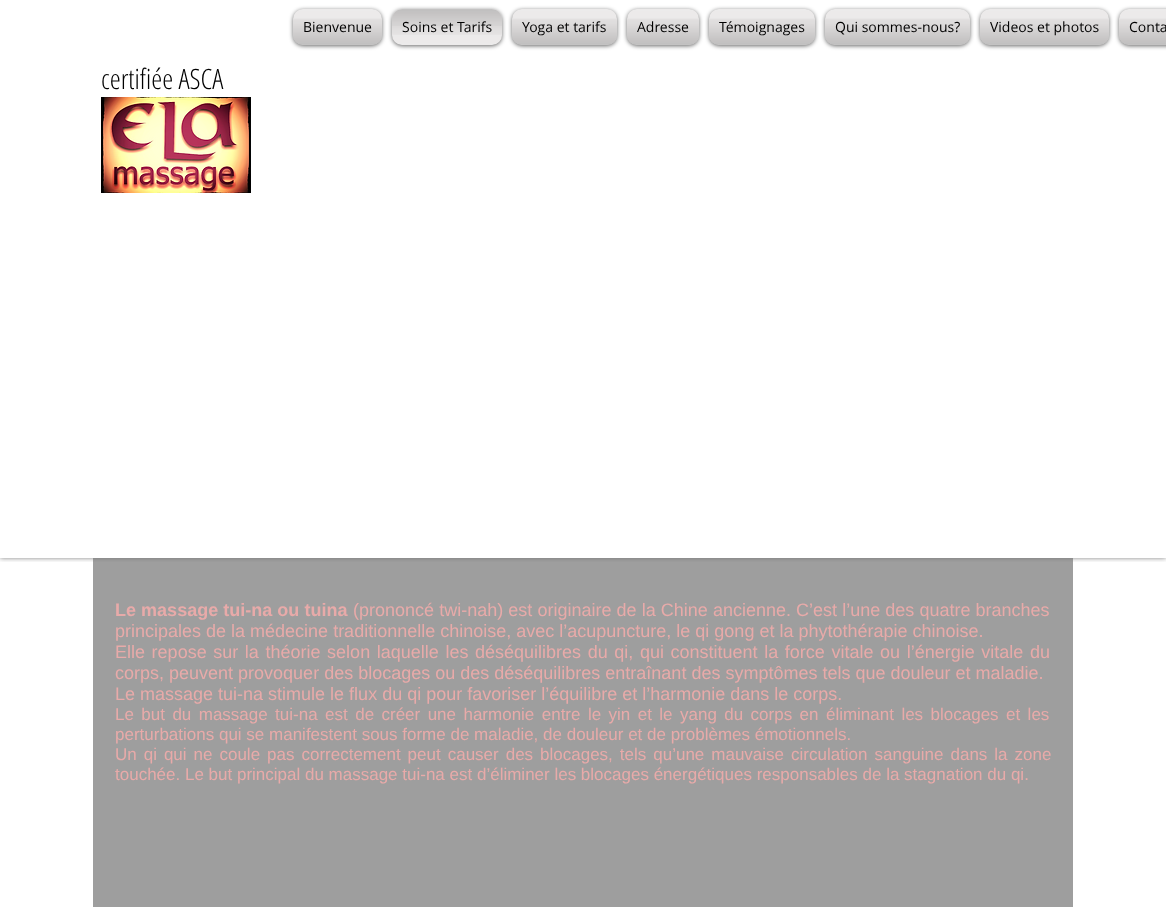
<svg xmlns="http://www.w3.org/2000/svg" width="1166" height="907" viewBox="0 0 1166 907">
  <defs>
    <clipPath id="clip1"><rect x="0" y="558" width="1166" height="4"/></clipPath>
    <filter id="blur1" x="-50%" y="-200%" width="200%" height="500%"><feGaussianBlur stdDeviation="2.5"/></filter>
    <filter id="blur2" x="-50%" y="-200%" width="200%" height="500%"><feGaussianBlur stdDeviation="2"/></filter>
  </defs>
  <rect width="100%" height="100%" fill="#ffffff"/>
  <g clip-path="url(#clip1)">
    <rect x="0" y="0" width="1166" height="558" fill="#000000" fill-opacity="0.5" filter="url(#blur1)"/>
  </g>
  <rect x="293" y="10" width="89" height="36" rx="10" fill="#000000" fill-opacity="0.6" filter="url(#blur2)"/>
  <rect x="293" y="9" width="89" height="36" rx="10" fill="#e8e6e6"/>
  <image x="294" y="9" width="87" height="9" href="img1.png"/>
  <image x="293" y="19" width="89" height="26" href="img2.png"/>
  <text x="303" y="32" font-family="Open Sans" font-size="14" fill="#000000">Bienvenue</text>
  <rect x="392" y="10" width="110" height="36" rx="10" fill="#000000" fill-opacity="0.6" filter="url(#blur2)"/>
  <rect x="392" y="9" width="110" height="36" rx="10" fill="#e8e6e6"/>
  <image x="392" y="9" width="110" height="26" href="img3.png"/>
  <image x="392" y="26" width="110" height="19" href="img4.png"/>
  <text x="402" y="32" font-family="Open Sans" font-size="14" fill="#000000">Soins et Tarifs</text>
  <rect x="512" y="10" width="105" height="36" rx="10" fill="#000000" fill-opacity="0.6" filter="url(#blur2)"/>
  <rect x="512" y="9" width="105" height="36" rx="10" fill="#e8e6e6"/>
  <image x="513" y="9" width="103" height="9" href="img5.png"/>
  <image x="512" y="19" width="105" height="26" href="img6.png"/>
  <text x="522" y="32" font-family="Open Sans" font-size="14" fill="#000000">Yoga et tarifs</text>
  <rect x="627" y="10" width="72" height="36" rx="10" fill="#000000" fill-opacity="0.6" filter="url(#blur2)"/>
  <rect x="627" y="9" width="72" height="36" rx="10" fill="#e8e6e6"/>
  <image x="628" y="9" width="70" height="9" href="img7.png"/>
  <image x="627" y="19" width="72" height="26" href="img8.png"/>
  <text x="637" y="32" font-family="Open Sans" font-size="14" fill="#000000">Adresse</text>
  <rect x="709" y="10" width="106" height="36" rx="10" fill="#000000" fill-opacity="0.6" filter="url(#blur2)"/>
  <rect x="709" y="9" width="106" height="36" rx="10" fill="#e8e6e6"/>
  <image x="710" y="9" width="104" height="9" href="img9.png"/>
  <image x="709" y="19" width="106" height="26" href="img10.png"/>
  <text x="719" y="32" font-family="Open Sans" font-size="14" fill="#000000">Témoignages</text>
  <rect x="825" y="10" width="145" height="36" rx="10" fill="#000000" fill-opacity="0.6" filter="url(#blur2)"/>
  <rect x="825" y="9" width="145" height="36" rx="10" fill="#e8e6e6"/>
  <image x="826" y="9" width="143" height="9" href="img11.png"/>
  <image x="825" y="19" width="145" height="26" href="img12.png"/>
  <text x="835" y="32" font-family="Open Sans" font-size="14" fill="#000000">Qui sommes-nous?</text>
  <rect x="980" y="10" width="129" height="36" rx="10" fill="#000000" fill-opacity="0.6" filter="url(#blur2)"/>
  <rect x="980" y="9" width="129" height="36" rx="10" fill="#e8e6e6"/>
  <image x="981" y="9" width="127" height="9" href="img13.png"/>
  <image x="980" y="19" width="129" height="26" href="img14.png"/>
  <text x="990" y="32" font-family="Open Sans" font-size="14" fill="#000000">Videos et photos</text>
  <rect x="1119" y="10" width="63" height="36" rx="10" fill="#000000" fill-opacity="0.6" filter="url(#blur2)"/>
  <rect x="1119" y="9" width="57" height="36" rx="10" fill="#e8e6e6"/>
  <image x="1120" y="9" width="46" height="9" href="img15.png"/>
  <image x="1119" y="19" width="47" height="26" href="img16.png"/>
  <text x="1129" y="32" font-family="Open Sans" font-size="14" fill="#000000">Conta</text>
  <text x="101" y="89" font-family="Open Sans Condensed" font-size="28" font-weight="300" fill="#000000">certifiée ASCA</text>
  <image x="101" y="97" width="150" height="96" href="img17.png"/>
  <rect x="93" y="558" width="980" height="349" fill="#757575" fill-opacity="0.7"/>
  <text x="115" y="616" word-spacing="0.1" font-family="Liberation Sans" font-size="18" font-weight="bold" fill="#e8aaa9">Le massage tui-na ou tuina</text>
  <text x="353" y="616" word-spacing="0.1" font-family="Liberation Sans" font-size="18" fill="#e8aaa9">(prononcé twi-nah) est originaire de la Chine ancienne. C’est l’une des quatre branches</text>
  <text x="115" y="637" font-family="Liberation Sans" font-size="18" fill="#e8aaa9">principales de la médecine traditionnelle chinoise, avec l’acupuncture, le qi gong et la phytothérapie chinoise.</text>
  <text x="115" y="658" word-spacing="1.6" font-family="Liberation Sans" font-size="18" fill="#e8aaa9">Elle repose sur la théorie selon laquelle les déséquilibres du qi, qui constituent la force vitale ou l’énergie vitale du</text>
  <text x="115" y="679" font-family="Liberation Sans" font-size="18" fill="#e8aaa9">corps, peuvent provoquer des blocages ou des déséquilibres entraînant des symptômes tels que douleur et maladie.</text>
  <text x="115" y="700" font-family="Liberation Sans" font-size="18" fill="#e8aaa9">Le massage tui-na stimule le flux du qi pour favoriser l’équilibre et l’harmonie dans le corps.</text>
  <text x="115" y="720" word-spacing="2.7" font-family="Liberation Sans" font-size="17" fill="#e8aaa9">Le but du massage tui-na est de créer une harmonie entre le yin et le yang du corps en éliminant les blocages et les</text>
  <text x="115" y="740" font-family="Liberation Sans" font-size="17" fill="#e8aaa9">perturbations qui se manifestent sous forme de maladie, de douleur et de problèmes émotionnels.</text>
  <text x="115" y="760" word-spacing="2.25" font-family="Liberation Sans" font-size="17" fill="#e8aaa9">Un qi qui ne coule pas correctement peut causer des blocages, tels qu’une mauvaise circulation sanguine dans la zone</text>
  <text x="115" y="780" font-family="Liberation Sans" font-size="17" fill="#e8aaa9">touchée. Le but principal du massage tui-na est d’éliminer les blocages énergétiques responsables de la stagnation du qi.</text>
</svg>
